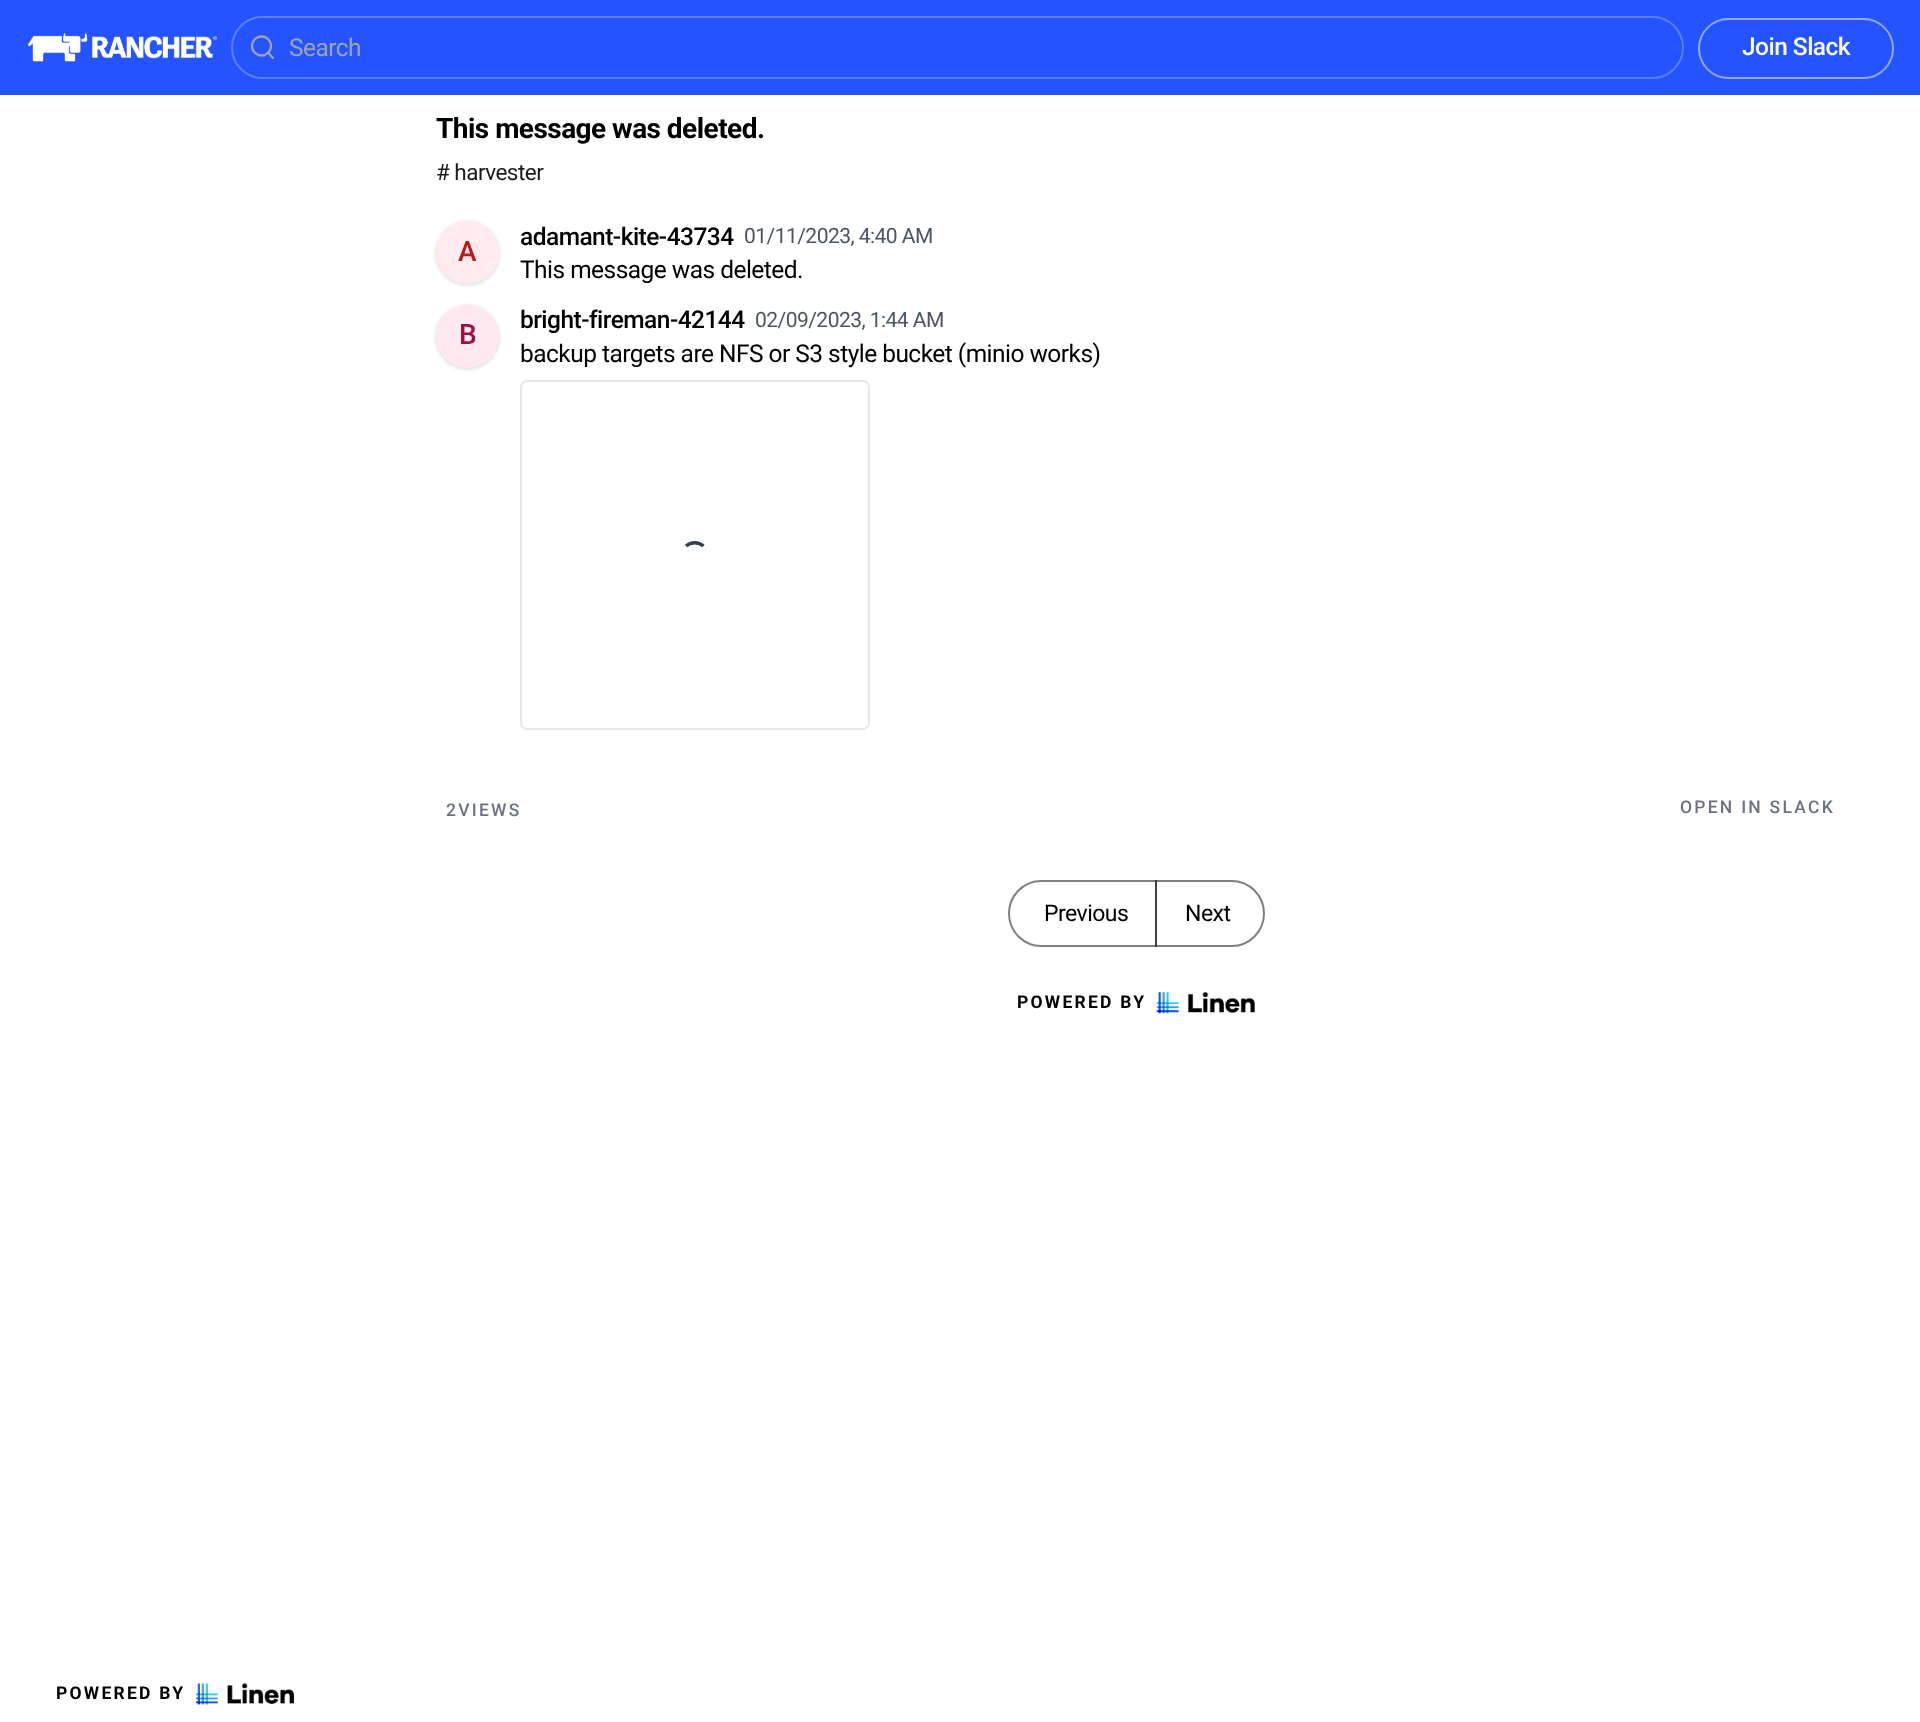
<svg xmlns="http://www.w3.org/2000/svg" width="1920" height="1722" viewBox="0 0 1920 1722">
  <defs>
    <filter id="blur1" x="-50%" y="-200%" width="200%" height="500%"><feGaussianBlur stdDeviation="2"/></filter>
  </defs>
  <rect width="100%" height="100%" fill="#ffffff"/>
  <rect x="0" y="0" width="1920" height="95" fill="#2453ff"/>
  <image x="28" y="33" width="189" height="29" href="img1.png"/>
  <rect x="232" y="17" width="1451" height="61" rx="30.5" fill="none" stroke="#5b7eff" stroke-width="2"/>
  <circle cx="261.5" cy="46" r="9.5" fill="none" stroke="#9ca3af" stroke-width="2.3"/>
  <path d="M273 58L268 52.5" fill="none" stroke="#9ca3af" stroke-width="2.3" stroke-linecap="round" stroke-linejoin="round"/>
  <text x="289" y="56" font-family="Roboto" font-size="24.5" letter-spacing="-0.53" fill="#9ca3af">Search</text>
  <rect x="1699" y="19" width="194" height="59" rx="29.5" fill="none" stroke="#92a9ff" stroke-width="2"/>
  <text x="1742" y="55" font-family="Roboto" font-size="24.5" font-weight="500" letter-spacing="-0.53" fill="#ffffff">Join Slack</text>
  <text x="436" y="138" font-family="Roboto" font-size="28" font-weight="bold" letter-spacing="-0.53" fill="#000000">This message was deleted.</text>
  <text x="436" y="180" font-family="Roboto" font-size="22.5" letter-spacing="-0.53" fill="#1a1a1a"># harvester</text>
  <rect x="436" y="222" width="63" height="63" rx="31.5" fill="#d1d5db" filter="url(#blur1)"/>
  <circle cx="467.5" cy="252.5" r="31.5" fill="#ffebee"/>
  <text x="458" y="261" font-family="Roboto" font-size="28" font-weight="500" letter-spacing="-0.53" fill="#b71c1c">A</text>
  <text x="520" y="245" font-family="Roboto" font-size="24.5" font-weight="500" letter-spacing="-0.53" fill="#000000">adamant-kite-43734</text>
  <text x="744" y="243" font-family="Roboto" font-size="21" letter-spacing="-0.53" fill="#4b5563">01/11/2023, 4:40 AM</text>
  <text x="520" y="278" font-family="Roboto" font-size="24.5" letter-spacing="-0.53" fill="#000000">This message was deleted.</text>
  <rect x="436" y="306" width="63" height="63" rx="31.5" fill="#d1d5db" filter="url(#blur1)"/>
  <circle cx="467.5" cy="336.5" r="31.5" fill="#ffe8f0"/>
  <text x="459" y="344" font-family="Roboto" font-size="28" font-weight="500" letter-spacing="-0.53" fill="#a20d41">B</text>
  <text x="520" y="328" font-family="Roboto" font-size="24.5" font-weight="500" letter-spacing="-0.53" fill="#000000">bright-fireman-42144</text>
  <text x="755" y="327" font-family="Roboto" font-size="21" letter-spacing="-0.53" fill="#4b5563">02/09/2023, 1:44 AM</text>
  <text x="520" y="362" font-family="Roboto" font-size="24.5" letter-spacing="-0.53" fill="#000000">backup targets are NFS or S3 style bucket (minio works)</text>
  <rect x="521" y="381" width="348" height="348" rx="6" fill="none" stroke="#e5e7eb" stroke-width="2"/>
  <path d="M686 546C691 541.5 698.5 541.5 703.5 546M686 546C691 541.5 698.5 541.5 703.5 546M686 546C691 541.5 698.5 541.5 703.5 546" fill="none" stroke="#374151" stroke-width="3.5"/>
  <text x="446" y="816" font-family="Roboto" font-size="17.5" font-weight="500" letter-spacing="2.25" fill="#6b7280">2VIEWS</text>
  <text x="1680" y="813" font-family="Roboto" font-size="17.5" font-weight="500" letter-spacing="2.25" fill="#6b7280">OPEN IN SLACK</text>
  <path d="M1041.5 881H1156V946H1041.5C1023.5 946 1009 931.5 1009 913.5C1009 895.5 1023.5 881 1041.5 881Z" fill="none" stroke="#808080" stroke-width="2"/>
  <text x="1044" y="921" font-family="Roboto" font-size="23" letter-spacing="-0.53" fill="#000000">Previous</text>
  <path d="M1156 881H1231.5C1249.5 881 1264 895.5 1264 913.5C1264 931.5 1249.5 946 1231.5 946H1156Z" fill="none" stroke="#000000" stroke-opacity="0.5" stroke-width="2"/>
  <text x="1185" y="921" font-family="Roboto" font-size="23" letter-spacing="-0.53" fill="#000000">Next</text>
  <text x="1017" y="1008" font-family="Roboto" font-size="17.5" font-weight="bold" letter-spacing="2.25" fill="#000000">POWERED BY</text>
  <image x="1156" y="992" width="99" height="22" href="img2.png"/>
  <text x="56" y="1699" font-family="Roboto" font-size="17.5" font-weight="bold" letter-spacing="2.25" fill="#000000">POWERED BY</text>
  <image x="196" y="1683" width="98" height="22" href="img3.png"/>
</svg>
